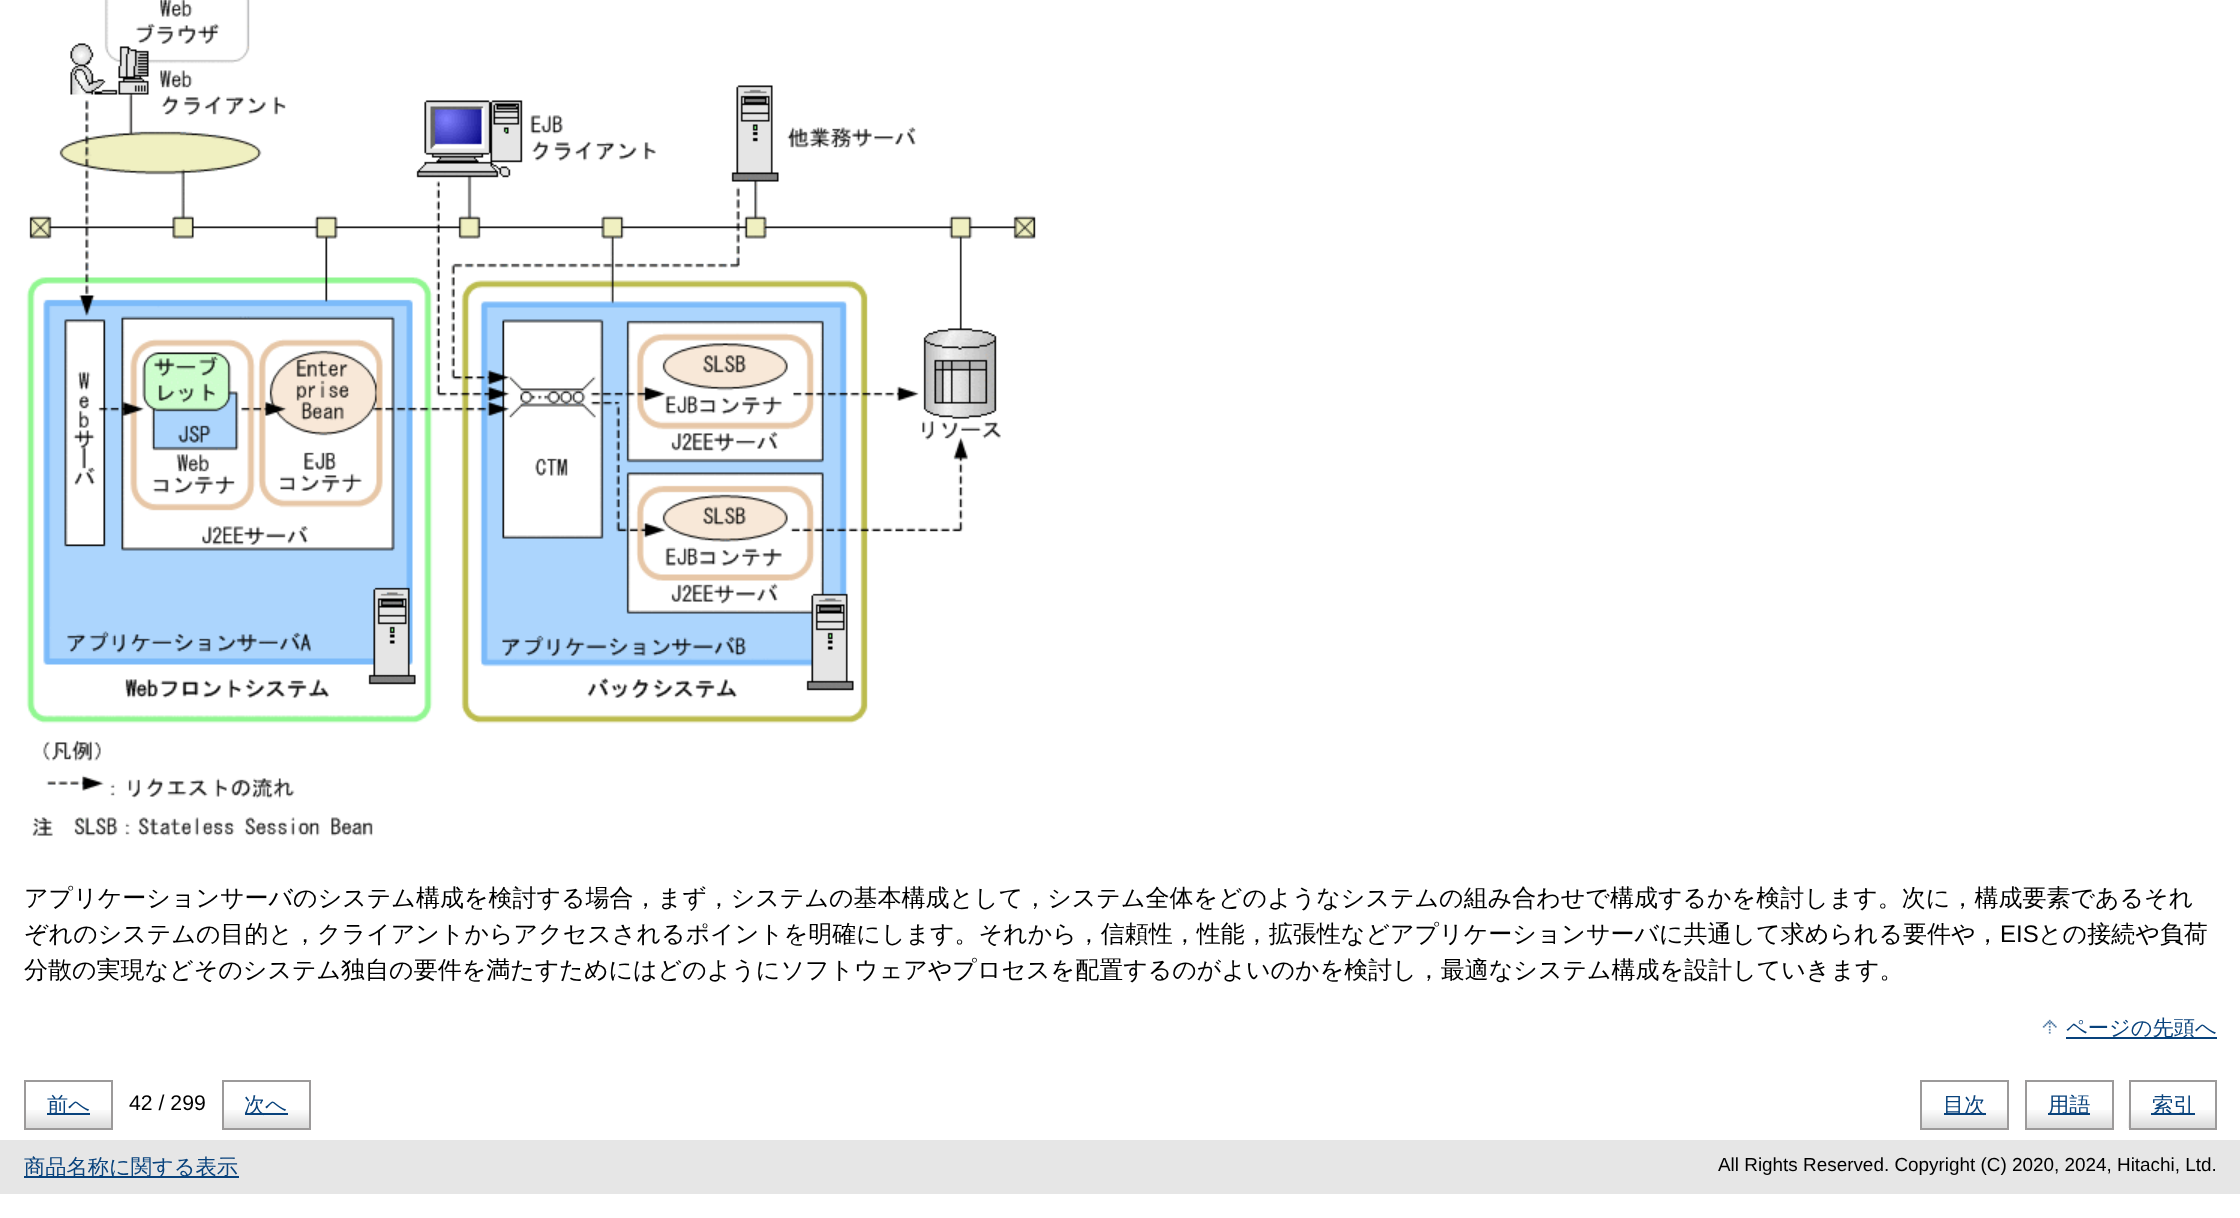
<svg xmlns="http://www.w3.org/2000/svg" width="2240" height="1218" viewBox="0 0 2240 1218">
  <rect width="100%" height="100%" fill="#ffffff"/>
  <image x="26" y="0" width="1010" height="836" href="img1.png"/>
  <text x="24" y="906" font-family="WenQuanYi Zen Hei" font-size="24" font-weight="500" fill="#000000">アプリケーションサーバのシステム構成を検討する場合，まず，システムの基本構成として，システム全体をどのようなシステムの組み合わせで構成するかを検討します。次に，構成要素であるそれ</text>
  <text x="24" y="942" font-family="WenQuanYi Zen Hei" font-size="24" font-weight="500" fill="#000000">ぞれのシステムの目的と，クライアントからアクセスされるポイントを明確にします。それから，信頼性，性能，拡張性などアプリケーションサーバに共通して求められる要件や，</text>
  <text x="2000" y="942" font-family="Liberation Sans" font-size="24" fill="#000000">EIS</text>
  <text x="2038" y="942" font-family="WenQuanYi Zen Hei" font-size="24" font-weight="500" fill="#000000">との接続や負荷</text>
  <text x="24" y="978" font-family="WenQuanYi Zen Hei" font-size="24" font-weight="500" fill="#000000">分散の実現などそのシステム独自の要件を満たすためにはどのようにソフトウェアやプロセスを配置するのがよいのかを検討し，最適なシステム構成を設計していきます。</text>
  <image x="2042" y="1019" width="15" height="15" href="img2.png"/>
  <rect x="2066" y="1037" width="151" height="2" fill="#08427c"/>
  <text x="2066" y="1035" font-family="WenQuanYi Zen Hei" font-size="21.25" font-weight="500" fill="#08427c">ページの先頭へ</text>
  <image x="26" y="1110" width="85" height="18" href="img3.png"/>
  <rect x="25" y="1081" width="87" height="48" fill="none" stroke="#9c9a9a" stroke-width="2"/>
  <rect x="47" y="1113" width="43" height="2" fill="#08427c"/>
  <text x="47" y="1112" font-family="WenQuanYi Zen Hei" font-size="21.25" font-weight="500" fill="#08427c">前へ</text>
  <text x="129" y="1110" font-family="Liberation Sans" font-size="21.25" fill="#000000">42 / 299</text>
  <image x="224" y="1110" width="85" height="18" href="img3.png"/>
  <rect x="223" y="1081" width="87" height="48" fill="none" stroke="#9c9a9a" stroke-width="2"/>
  <rect x="245" y="1113" width="43" height="2" fill="#08427c"/>
  <text x="244" y="1112" font-family="WenQuanYi Zen Hei" font-size="21.25" font-weight="500" fill="#08427c">次へ</text>
  <image x="1922" y="1110" width="85" height="18" href="img3.png"/>
  <rect x="1921" y="1081" width="87" height="48" fill="none" stroke="#9c9a9a" stroke-width="2"/>
  <rect x="1944" y="1113" width="42" height="2" fill="#08427c"/>
  <text x="1943" y="1112" font-family="WenQuanYi Zen Hei" font-size="21.25" font-weight="500" fill="#08427c">目次</text>
  <image x="2027" y="1110" width="85" height="18" href="img3.png"/>
  <rect x="2026" y="1081" width="87" height="48" fill="none" stroke="#9c9a9a" stroke-width="2"/>
  <rect x="2048" y="1113" width="42" height="2" fill="#08427c"/>
  <text x="2048" y="1112" font-family="WenQuanYi Zen Hei" font-size="21.25" font-weight="500" fill="#08427c">用語</text>
  <image x="2128" y="1110" width="87" height="18" href="img4.png"/>
  <rect x="2130" y="1081" width="86" height="48" fill="none" stroke="#9c9a9a" stroke-width="2"/>
  <rect x="2151" y="1113" width="44" height="2" fill="#08427c"/>
  <text x="2152" y="1112" font-family="WenQuanYi Zen Hei" font-size="21.25" font-weight="500" fill="#08427c">索引</text>
  <rect x="0" y="1140" width="2240" height="54" fill="#e6e6e6"/>
  <rect x="24" y="1176" width="215" height="2" fill="#08427c"/>
  <text x="24" y="1174" font-family="WenQuanYi Zen Hei" font-size="21.25" font-weight="500" fill="#08427c">商品名称に関する表示</text>
  <text x="1718" y="1171" font-family="Liberation Sans" font-size="18.9" fill="#000000">All Rights Reserved. Copyright (C) 2020, 2024, Hitachi, Ltd.</text>
</svg>
